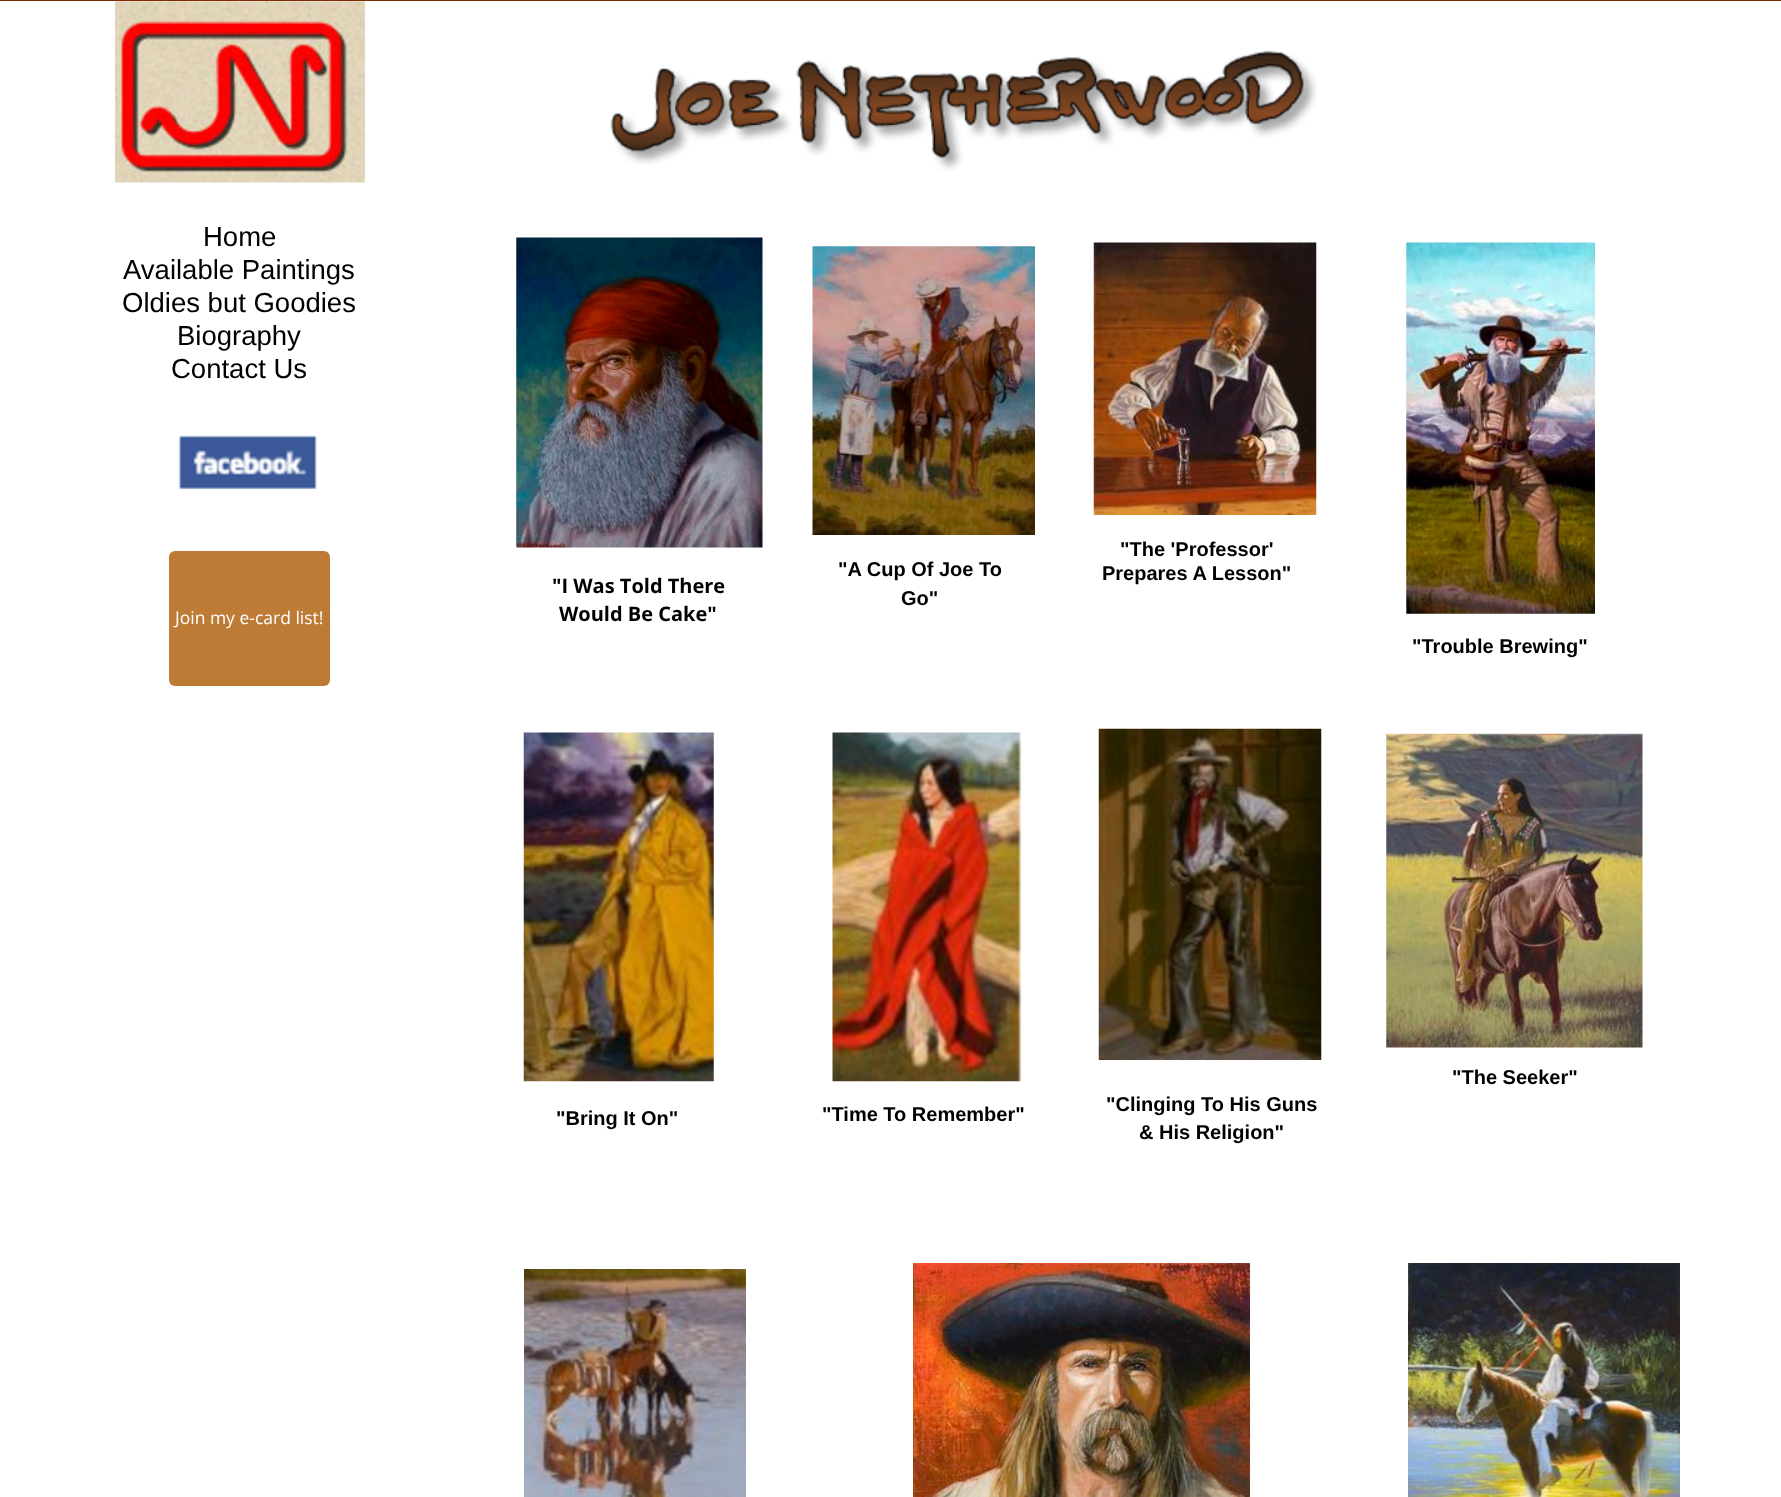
<svg xmlns="http://www.w3.org/2000/svg" width="1781" height="1497" viewBox="0 0 1781 1497">
  <rect width="100%" height="100%" fill="#ffffff"/>
  <rect x="0" y="0" width="1781" height="1" fill="#802d04"/>
  <image x="266" y="1" width="2" height="1" href="img2.png"/>
  <image x="266" y="1" width="2" height="1" href="img3.png"/>
  <image x="266" y="1" width="2" height="1" href="img4.png"/>
  <image x="266" y="1" width="2" height="1" href="img5.png"/>
  <image x="266" y="1" width="2" height="1" href="img6.png"/>
  <image x="266" y="1" width="2" height="1" href="img7.png"/>
  <image x="266" y="1" width="2" height="1" href="img8.png"/>
  <image x="266" y="1" width="2" height="1" href="img9.png"/>
  <image x="115" y="1" width="250" height="182" href="img1.png"/>
  <image x="610" y="50" width="707" height="121" href="img10.png"/>
  <text x="203" y="246" font-family="Liberation Sans" font-size="27.5" fill="#000000">Home</text>
  <text x="123" y="279" font-family="Liberation Sans" font-size="27.5" fill="#000000">Available Paintings</text>
  <text x="122" y="312" font-family="Liberation Sans" font-size="27.5" fill="#000000">Oldies but Goodies</text>
  <text x="177" y="345" font-family="Liberation Sans" font-size="27.5" fill="#000000">Biography</text>
  <text x="171" y="378" font-family="Liberation Sans" font-size="27.5" fill="#000000">Contact Us</text>
  <image x="516" y="237" width="247" height="311" href="img11.png"/>
  <image x="812" y="246" width="223" height="289" href="img12.png"/>
  <image x="1093" y="242" width="224" height="273" href="img13.png"/>
  <image x="1406" y="242" width="189" height="372" href="img14.png"/>
  <image x="178" y="435" width="139" height="55" href="img15.png"/>
  <rect x="169" y="551" width="161" height="135" rx="6" fill="#bd7b36"/>
  <text x="175" y="624" font-family="Open Sans" font-size="17.5" fill="#ffffff">Join my e-card list!</text>
  <text x="552" y="593" font-family="Open Sans" font-size="20" font-weight="bold" fill="#000000">"I Was Told There</text>
  <text x="559" y="621" font-family="Open Sans" font-size="20" font-weight="bold" fill="#000000">Would Be Cake"</text>
  <text x="838" y="576" font-family="Liberation Sans" font-size="20" font-weight="bold" fill="#000000">"A Cup Of Joe To</text>
  <text x="901" y="605" font-family="Liberation Sans" font-size="20" font-weight="bold" fill="#000000">Go"</text>
  <text x="1120" y="556" font-family="Liberation Sans" font-size="20" font-weight="bold" fill="#000000">"The 'Professor'</text>
  <text x="1102" y="580" font-family="Liberation Sans" font-size="20" font-weight="bold" fill="#000000">Prepares A Lesson"</text>
  <text x="1412" y="653" font-family="Liberation Sans" font-size="20" font-weight="bold" fill="#000000">"Trouble Brewing"</text>
  <image x="523" y="732" width="191" height="350" href="img16.png"/>
  <image x="832" y="732" width="190" height="350" href="img17.png"/>
  <image x="1098" y="728" width="224" height="332" href="img18.png"/>
  <image x="1386" y="733" width="257" height="315" href="img19.png"/>
  <text x="1452" y="1084" font-family="Liberation Sans" font-size="20" font-weight="bold" fill="#000000">"The Seeker"</text>
  <text x="556" y="1125" font-family="Liberation Sans" font-size="20" font-weight="bold" fill="#000000">"Bring It On"</text>
  <text x="822" y="1121" font-family="Liberation Sans" font-size="20" font-weight="bold" fill="#000000">"Time To Remember"</text>
  <text x="1106" y="1111" font-family="Liberation Sans" font-size="20" font-weight="bold" fill="#000000">"Clinging To His Guns</text>
  <text x="1139" y="1139" font-family="Liberation Sans" font-size="20" font-weight="bold" fill="#000000">&amp; His Religion"</text>
  <image x="524" y="1269" width="222" height="228" href="img20.png"/>
  <image x="913" y="1263" width="337" height="234" href="img21.png"/>
  <image x="1408" y="1263" width="272" height="234" href="img22.png"/>
</svg>
